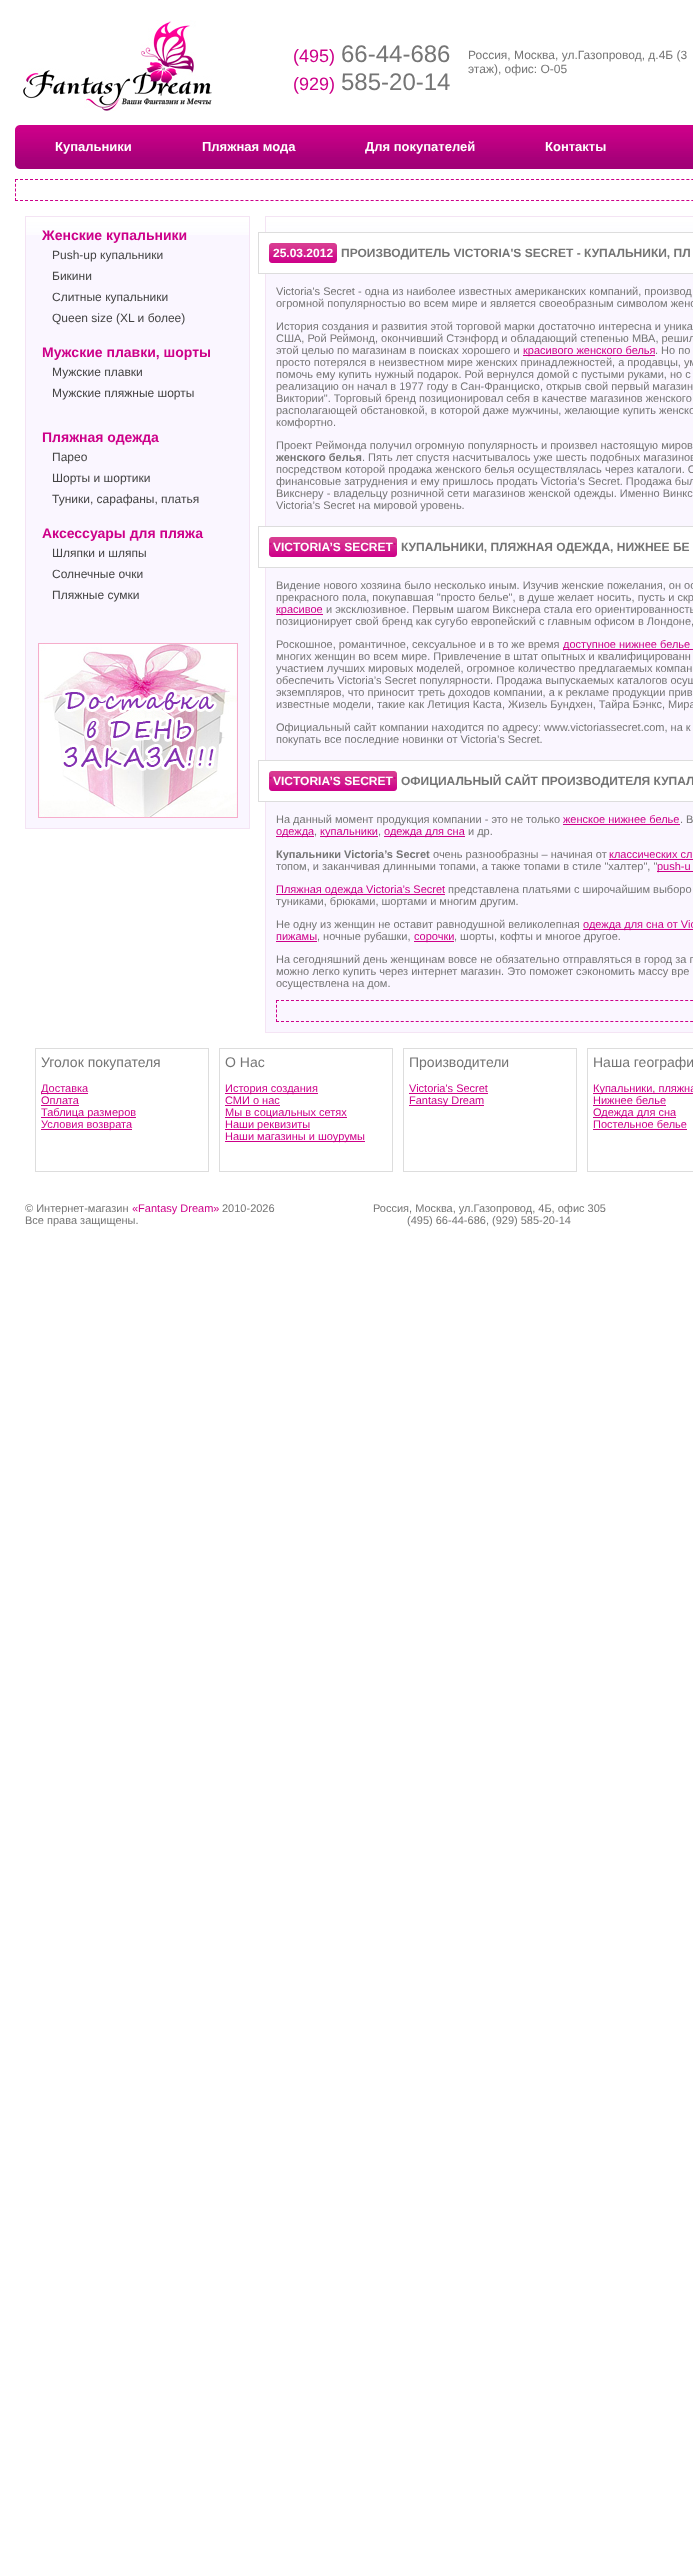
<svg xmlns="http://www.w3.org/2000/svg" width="693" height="2568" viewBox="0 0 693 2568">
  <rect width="100%" height="100%" fill="#ffffff"/>
  <image x="23" y="20" width="189" height="91" href="img1.png"/>
  <text x="293" y="62" font-family="Liberation Sans" font-size="18" fill="#cd0089">(495)</text>
  <text x="341" y="62" font-family="Liberation Sans" font-size="24" fill="#757575">66-44-686</text>
  <text x="293" y="90" font-family="Liberation Sans" font-size="18" fill="#cd0089">(929)</text>
  <text x="341" y="90" font-family="Liberation Sans" font-size="24" fill="#757575">585-20-14</text>
  <text x="468" y="59" font-family="Liberation Sans" font-size="12" fill="#757575">Россия, Москва, ул.Газопровод, д.4Б (3</text>
  <text x="468" y="73" font-family="Liberation Sans" font-size="12" fill="#757575">этаж), офис: О-05</text>
  <image x="20" y="125" width="673" height="44" href="img2.png"/>
  <image x="15" y="125" width="5" height="44" href="img3.png"/>
  <text x="55" y="151" font-family="Liberation Sans" font-size="13" font-weight="bold" fill="#ffffff">Купальники</text>
  <text x="202" y="151" font-family="Liberation Sans" font-size="13" font-weight="bold" fill="#ffffff">Пляжная мода</text>
  <text x="365" y="151" font-family="Liberation Sans" font-size="13" font-weight="bold" fill="#ffffff">Для покупателей</text>
  <text x="545" y="151" font-family="Liberation Sans" font-size="13" font-weight="bold" fill="#ffffff">Контакты</text>
  <path d="M15 179.5H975" fill="none" stroke="#cd0089" stroke-dasharray="3 2.01"/>
  <path d="M15 200.5H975" fill="none" stroke="#cd0089" stroke-dasharray="3 2.01"/>
  <path d="M15.5 179V201" fill="none" stroke="#cd0089" stroke-dasharray="3 1.75"/>
  <rect x="26" y="235" width="223" height="593" fill="#faf6ff"/>
  <image x="26" y="217" width="223" height="18" href="img4.png"/>
  <rect x="25.5" y="216.5" width="224" height="612" fill="none" stroke="#f4e4f4"/>
  <text x="42" y="240" font-family="Liberation Sans" font-size="14" font-weight="bold" fill="#cd0089">Женские купальники</text>
  <text x="52" y="259" font-family="Liberation Sans" font-size="12" fill="#444444">Push-up купальники</text>
  <text x="52" y="280" font-family="Liberation Sans" font-size="12" fill="#444444">Бикини</text>
  <text x="52" y="301" font-family="Liberation Sans" font-size="12" fill="#444444">Слитные купальники</text>
  <text x="52" y="322" font-family="Liberation Sans" font-size="12" fill="#444444">Queen size (XL и более)</text>
  <text x="42" y="357" font-family="Liberation Sans" font-size="14" font-weight="bold" fill="#cd0089">Мужские плавки, шорты</text>
  <text x="52" y="376" font-family="Liberation Sans" font-size="12" fill="#444444">Мужские плавки</text>
  <text x="52" y="397" font-family="Liberation Sans" font-size="12" fill="#444444">Мужские пляжные шорты</text>
  <text x="42" y="442" font-family="Liberation Sans" font-size="14" font-weight="bold" fill="#cd0089">Пляжная одежда</text>
  <text x="52" y="461" font-family="Liberation Sans" font-size="12" fill="#444444">Парео</text>
  <text x="52" y="482" font-family="Liberation Sans" font-size="12" fill="#444444">Шорты и шортики</text>
  <text x="52" y="503" font-family="Liberation Sans" font-size="12" fill="#444444">Туники, сарафаны, платья</text>
  <text x="42" y="538" font-family="Liberation Sans" font-size="14" font-weight="bold" fill="#cd0089">Аксессуары для пляжа</text>
  <text x="52" y="557" font-family="Liberation Sans" font-size="12" fill="#444444">Шляпки и шляпы</text>
  <text x="52" y="578" font-family="Liberation Sans" font-size="12" fill="#444444">Солнечные очки</text>
  <text x="52" y="599" font-family="Liberation Sans" font-size="12" fill="#444444">Пляжные сумки</text>
  <image x="38" y="643" width="200" height="175" href="img5.png"/>
  <rect x="266" y="274" width="427" height="758" fill="#faf6ff"/>
  <image x="266" y="217" width="427" height="15" href="img6.png"/>
  <rect x="265.5" y="216.5" width="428" height="816" fill="none" stroke="#f4e4f4"/>
  <rect x="265" y="233" width="1" height="40" fill="#ffffff"/>
  <rect x="258.5" y="232.5" width="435" height="41" fill="none" stroke="#dddddd"/>
  <image x="272" y="243" width="62" height="20" href="img7.png"/>
  <image x="269" y="243" width="3" height="20" href="img8.png"/>
  <text x="273" y="257" font-family="Liberation Sans" font-size="12" font-weight="bold" fill="#ffffff">25.03.2012</text>
  <image x="334" y="243" width="3" height="20" href="img9.png"/>
  <text x="341" y="257" font-family="Liberation Sans" font-size="12" font-weight="bold" fill="#757575">ПРОИЗВОДИТЕЛЬ VICTORIA'S SECRET - КУПАЛЬНИКИ, ПЛ</text>
  <text x="276" y="295" font-family="Liberation Sans" font-size="11" fill="#757575">Victoria's Secret - одна из наиболее известных американских компаний, производ</text>
  <text x="276" y="307" font-family="Liberation Sans" font-size="11" fill="#757575">огромной популярностью во всем мире и является своеобразным символом женс</text>
  <text x="276" y="330" font-family="Liberation Sans" font-size="11" fill="#757575">История создания и развития этой торговой марки достаточно интересна и уника</text>
  <text x="276" y="342" font-family="Liberation Sans" font-size="11" fill="#757575">США, Рой Реймонд, окончивший Стэнфорд и обладающий степенью МВА, решил</text>
  <text x="276" y="354" font-family="Liberation Sans" font-size="11" fill="#757575">этой целью по магазинам в поисках хорошего и</text>
  <rect x="523" y="355" width="132" height="1" fill="#cd0089"/>
  <text x="523" y="354" font-family="Liberation Sans" font-size="11" fill="#cd0089">красивого женского белья</text>
  <text x="655" y="354" font-family="Liberation Sans" font-size="11" fill="#757575">. Но по</text>
  <text x="276" y="366" font-family="Liberation Sans" font-size="11" fill="#757575">просто потерялся в неизвестном мире женских принадлежностей, а продавцы, ум</text>
  <text x="276" y="378" font-family="Liberation Sans" font-size="11" fill="#757575">помочь ему купить нужный подарок. Рой вернулся домой с пустыми руками, но с</text>
  <text x="276" y="390" font-family="Liberation Sans" font-size="11" fill="#757575">реализацию он начал в 1977 году в Сан-Франциско, открыв свой первый магазин</text>
  <text x="276" y="402" font-family="Liberation Sans" font-size="11" fill="#757575">Виктории". Торговый бренд позиционировал себя в качестве магазинов женского</text>
  <text x="276" y="414" font-family="Liberation Sans" font-size="11" fill="#757575">располагающей обстановкой, в которой даже мужчины, желающие купить женско</text>
  <text x="276" y="426" font-family="Liberation Sans" font-size="11" fill="#757575">комфортно.</text>
  <text x="276" y="449" font-family="Liberation Sans" font-size="11" fill="#757575">Проект Реймонда получил огромную популярность и произвел настоящую миров</text>
  <text x="276" y="461" font-family="Liberation Sans" font-size="11" font-weight="bold" fill="#757575">женского белья</text>
  <text x="362" y="461" font-family="Liberation Sans" font-size="11" fill="#757575">. Пять лет спустя насчитывалось уже шесть подобных магазинов</text>
  <text x="276" y="473" font-family="Liberation Sans" font-size="11" fill="#757575">посредством которой продажа женского белья осуществлялась через каталоги. О</text>
  <text x="276" y="485" font-family="Liberation Sans" font-size="11" fill="#757575">финансовые затруднения и ему пришлось продать Victoria’s Secret. Продажа был</text>
  <text x="276" y="497" font-family="Liberation Sans" font-size="11" fill="#757575">Викснеру - владельцу розничной сети магазинов женской одежды. Именно Винкс</text>
  <text x="276" y="509" font-family="Liberation Sans" font-size="11" fill="#757575">Victoria’s Secret на мировой уровень.</text>
  <rect x="265" y="527" width="428" height="40" fill="#ffffff"/>
  <rect x="258.5" y="526.5" width="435" height="41" fill="none" stroke="#dddddd"/>
  <image x="272" y="537" width="122" height="20" href="img10.png"/>
  <image x="269" y="537" width="3" height="20" href="img8.png"/>
  <text x="269" y="548" font-family="Liberation Sans" font-size="12" font-weight="bold" fill="#cd0089">·</text>
  <text x="273" y="551" font-family="Liberation Sans" font-size="12" font-weight="bold" fill="#ffffff">VICTORIA’S SECRET</text>
  <image x="394" y="537" width="3" height="20" href="img9.png"/>
  <text x="393" y="548" font-family="Liberation Sans" font-size="12" font-weight="bold" fill="#cd0089">·</text>
  <text x="401" y="551" font-family="Liberation Sans" font-size="12" font-weight="bold" fill="#757575">КУПАЛЬНИКИ, ПЛЯЖНАЯ ОДЕЖДА, НИЖНЕЕ БЕ</text>
  <text x="276" y="589" font-family="Liberation Sans" font-size="11" fill="#757575">Видение нового хозяина было несколько иным. Изучив женские пожелания, он ос</text>
  <text x="276" y="601" font-family="Liberation Sans" font-size="11" fill="#757575">прекрасного пола, покупавшая "просто белье", в душе желает носить, пусть и скр</text>
  <rect x="276" y="614" width="47" height="1" fill="#cd0089"/>
  <text x="276" y="613" font-family="Liberation Sans" font-size="11" fill="#cd0089">красивое</text>
  <text x="326" y="613" font-family="Liberation Sans" font-size="11" fill="#757575">и эксклюзивное. Первым шагом Викснера стала его ориентированность</text>
  <text x="276" y="625" font-family="Liberation Sans" font-size="11" fill="#757575">позиционирует свой бренд как сугубо европейский с главным офисом в Лондоне,</text>
  <text x="276" y="648" font-family="Liberation Sans" font-size="11" fill="#757575">Роскошное, романтичное, сексуальное и в то же время</text>
  <rect x="563" y="649" width="130" height="1" fill="#cd0089"/>
  <text x="563" y="648" font-family="Liberation Sans" font-size="11" fill="#cd0089">доступное нижнее белье</text>
  <text x="276" y="660" font-family="Liberation Sans" font-size="11" fill="#757575">многих женщин во всем мире. Привлечение в штат опытных и квалифицированн</text>
  <text x="276" y="672" font-family="Liberation Sans" font-size="11" fill="#757575">участием лучших мировых моделей, огромное количество предлагаемых компан</text>
  <text x="276" y="684" font-family="Liberation Sans" font-size="11" fill="#757575">обеспечить Victoria’s Secret популярности. Продажа выпускаемых каталогов осущ</text>
  <text x="276" y="696" font-family="Liberation Sans" font-size="11" fill="#757575">экземпляров, что приносит треть доходов компании, а к рекламе продукции прив</text>
  <text x="276" y="708" font-family="Liberation Sans" font-size="11" fill="#757575">известные модели, такие как Летиция Каста, Жизель Бундхен, Тайра Бэнкс, Мира</text>
  <text x="276" y="731" font-family="Liberation Sans" font-size="11" fill="#757575">Официальный сайт компании находится по адресу: www.victoriassecret.com, на к</text>
  <text x="276" y="743" font-family="Liberation Sans" font-size="11" fill="#757575">покупать все последние новинки от Victoria’s Secret.</text>
  <rect x="265" y="761" width="428" height="40" fill="#ffffff"/>
  <rect x="258.5" y="760.5" width="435" height="41" fill="none" stroke="#dddddd"/>
  <image x="272" y="771" width="122" height="20" href="img10.png"/>
  <image x="269" y="771" width="3" height="20" href="img8.png"/>
  <text x="269" y="782" font-family="Liberation Sans" font-size="12" font-weight="bold" fill="#cd0089">·</text>
  <text x="273" y="785" font-family="Liberation Sans" font-size="12" font-weight="bold" fill="#ffffff">VICTORIA’S SECRET</text>
  <image x="394" y="771" width="3" height="20" href="img9.png"/>
  <text x="393" y="782" font-family="Liberation Sans" font-size="12" font-weight="bold" fill="#cd0089">·</text>
  <text x="401" y="785" font-family="Liberation Sans" font-size="12" font-weight="bold" fill="#757575">ОФИЦИАЛЬНЫЙ САЙТ ПРОИЗВОДИТЕЛЯ КУПАЛ</text>
  <text x="276" y="823" font-family="Liberation Sans" font-size="11" fill="#757575">На данный момент продукция компании - это не только</text>
  <text x="563" y="823" font-family="Liberation Sans" font-size="11" fill="#cd0089">женское нижнее белье</text>
  <rect x="563" y="824" width="117" height="1" fill="#cd0089"/>
  <text x="680" y="823" font-family="Liberation Sans" font-size="11" fill="#757575">. В</text>
  <rect x="276" y="836" width="38" height="1" fill="#cd0089"/>
  <text x="276" y="835" font-family="Liberation Sans" font-size="11" fill="#cd0089">одежда</text>
  <text x="314" y="835" font-family="Liberation Sans" font-size="11" fill="#757575">,</text>
  <rect x="320" y="836" width="58" height="1" fill="#cd0089"/>
  <text x="320" y="835" font-family="Liberation Sans" font-size="11" fill="#cd0089">купальники</text>
  <text x="378" y="835" font-family="Liberation Sans" font-size="11" fill="#757575">,</text>
  <rect x="384" y="836" width="81" height="1" fill="#cd0089"/>
  <text x="384" y="835" font-family="Liberation Sans" font-size="11" fill="#cd0089">одежда для сна</text>
  <text x="468" y="835" font-family="Liberation Sans" font-size="11" fill="#757575">и др.</text>
  <text x="276" y="858" font-family="Liberation Sans" font-size="11" font-weight="bold" fill="#757575">Купальники Victoria’s Secret</text>
  <text x="433" y="858" font-family="Liberation Sans" font-size="11" fill="#757575">очень разнообразны – начиная от</text>
  <text x="609" y="858" font-family="Liberation Sans" font-size="11" fill="#cd0089">классических сл</text>
  <rect x="609" y="859" width="84" height="1" fill="#cd0089"/>
  <text x="276" y="870" font-family="Liberation Sans" font-size="11" fill="#757575">топом, и заканчивая длинными топами, а также топами в стиле "халтер", "</text>
  <rect x="657" y="871" width="36" height="1" fill="#cd0089"/>
  <text x="657" y="870" font-family="Liberation Sans" font-size="11" fill="#cd0089">push-u</text>
  <rect x="276" y="894" width="169" height="1" fill="#cd0089"/>
  <text x="276" y="893" font-family="Liberation Sans" font-size="11" fill="#cd0089">Пляжная одежда Victoria’s Secret</text>
  <text x="448" y="893" font-family="Liberation Sans" font-size="11" fill="#757575">представлена платьями с широчайшим выборо</text>
  <text x="276" y="905" font-family="Liberation Sans" font-size="11" fill="#757575">туниками, брюками, шортами и многим другим.</text>
  <text x="276" y="928" font-family="Liberation Sans" font-size="11" fill="#757575">Не одну из женщин не оставит равнодушной великолепная</text>
  <rect x="583" y="929" width="110" height="1" fill="#cd0089"/>
  <text x="583" y="928" font-family="Liberation Sans" font-size="11" fill="#cd0089">одежда для сна от Vic</text>
  <text x="276" y="940" font-family="Liberation Sans" font-size="11" fill="#cd0089">пижамы</text>
  <rect x="276" y="941" width="41" height="1" fill="#cd0089"/>
  <text x="317" y="940" font-family="Liberation Sans" font-size="11" fill="#757575">, ночные рубашки,</text>
  <rect x="414" y="941" width="40" height="1" fill="#cd0089"/>
  <text x="414" y="940" font-family="Liberation Sans" font-size="11" fill="#cd0089">сорочки</text>
  <text x="454" y="940" font-family="Liberation Sans" font-size="11" fill="#757575">, шорты, кофты и многое другое.</text>
  <text x="276" y="963" font-family="Liberation Sans" font-size="11" fill="#757575">На сегодняшний день женщинам вовсе не обязательно отправляться в город за п</text>
  <text x="276" y="975" font-family="Liberation Sans" font-size="11" fill="#757575">можно легко купить через интернет магазин. Это поможет сэкономить массу вре</text>
  <text x="276" y="987" font-family="Liberation Sans" font-size="11" fill="#757575">осуществлена на дом.</text>
  <path d="M276 1000.5H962" fill="none" stroke="#cd0089" stroke-dasharray="3 1.99"/>
  <path d="M276 1021.5H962" fill="none" stroke="#cd0089" stroke-dasharray="3 1.99"/>
  <path d="M276.5 1000V1022" fill="none" stroke="#cd0089" stroke-dasharray="3 1.75"/>
  <rect x="35.5" y="1048.5" width="173" height="123" fill="none" stroke="#dddddd"/>
  <text x="41" y="1067" font-family="Liberation Sans" font-size="14" fill="#757575">Уголок покупателя</text>
  <rect x="41" y="1093" width="47" height="1" fill="#cd0089"/>
  <text x="41" y="1092" font-family="Liberation Sans" font-size="11" fill="#cd0089">Доставка</text>
  <text x="41" y="1104" font-family="Liberation Sans" font-size="11" fill="#cd0089">Оплата</text>
  <rect x="41" y="1105" width="38" height="1" fill="#cd0089"/>
  <rect x="41" y="1117" width="95" height="1" fill="#cd0089"/>
  <text x="41" y="1116" font-family="Liberation Sans" font-size="11" fill="#cd0089">Таблица размеров</text>
  <rect x="41" y="1129" width="91" height="1" fill="#cd0089"/>
  <text x="41" y="1128" font-family="Liberation Sans" font-size="11" fill="#cd0089">Условия возврата</text>
  <rect x="219.5" y="1048.5" width="173" height="123" fill="none" stroke="#dddddd"/>
  <text x="225" y="1067" font-family="Liberation Sans" font-size="14" fill="#757575">О Нас</text>
  <rect x="225" y="1093" width="93" height="1" fill="#cd0089"/>
  <text x="225" y="1092" font-family="Liberation Sans" font-size="11" fill="#cd0089">История создания</text>
  <text x="225" y="1104" font-family="Liberation Sans" font-size="11" fill="#cd0089">СМИ о нас</text>
  <rect x="225" y="1105" width="55" height="1" fill="#cd0089"/>
  <rect x="225" y="1117" width="122" height="1" fill="#cd0089"/>
  <text x="225" y="1116" font-family="Liberation Sans" font-size="11" fill="#cd0089">Мы в социальных сетях</text>
  <rect x="225" y="1129" width="85" height="1" fill="#cd0089"/>
  <text x="225" y="1128" font-family="Liberation Sans" font-size="11" fill="#cd0089">Наши реквизиты</text>
  <rect x="225" y="1141" width="140" height="1" fill="#cd0089"/>
  <text x="225" y="1140" font-family="Liberation Sans" font-size="11" fill="#cd0089">Наши магазины и шоурумы</text>
  <rect x="403.5" y="1048.5" width="173" height="123" fill="none" stroke="#dddddd"/>
  <text x="409" y="1067" font-family="Liberation Sans" font-size="14" fill="#757575">Производители</text>
  <text x="409" y="1092" font-family="Liberation Sans" font-size="11" fill="#cd0089">Victoria's Secret</text>
  <rect x="409" y="1093" width="79" height="1" fill="#cd0089"/>
  <rect x="409" y="1105" width="75" height="1" fill="#cd0089"/>
  <text x="409" y="1104" font-family="Liberation Sans" font-size="11" fill="#cd0089">Fantasy Dream</text>
  <rect x="587.5" y="1048.5" width="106" height="123" fill="none" stroke="#dddddd"/>
  <text x="593" y="1067" font-family="Liberation Sans" font-size="14" fill="#757575">Наша географи</text>
  <rect x="593" y="1093" width="100" height="1" fill="#cd0089"/>
  <text x="593" y="1092" font-family="Liberation Sans" font-size="11" fill="#cd0089">Купальники, пляжна</text>
  <text x="593" y="1104" font-family="Liberation Sans" font-size="11" fill="#cd0089">Нижнее белье</text>
  <rect x="593" y="1105" width="73" height="1" fill="#cd0089"/>
  <rect x="593" y="1117" width="83" height="1" fill="#cd0089"/>
  <text x="593" y="1116" font-family="Liberation Sans" font-size="11" fill="#cd0089">Одежда для сна</text>
  <text x="593" y="1128" font-family="Liberation Sans" font-size="11" fill="#cd0089">Постельное белье</text>
  <rect x="593" y="1129" width="94" height="1" fill="#cd0089"/>
  <text x="25" y="1212" font-family="Liberation Sans" font-size="11" fill="#757575">© Интернет-магазин</text>
  <text x="132" y="1212" font-family="Liberation Sans" font-size="11" fill="#cd0089">«Fantasy Dream»</text>
  <text x="222" y="1212" font-family="Liberation Sans" font-size="11" fill="#757575">2010-2026</text>
  <text x="25" y="1224" font-family="Liberation Sans" font-size="11" fill="#757575">Все права защищены.</text>
  <text x="373" y="1212" font-family="Liberation Sans" font-size="11" fill="#757575">Россия, Москва, ул.Газопровод, 4Б, офис 305</text>
  <text x="407" y="1224" font-family="Liberation Sans" font-size="11" fill="#757575">(495) 66-44-686, (929) 585-20-14</text>
</svg>
